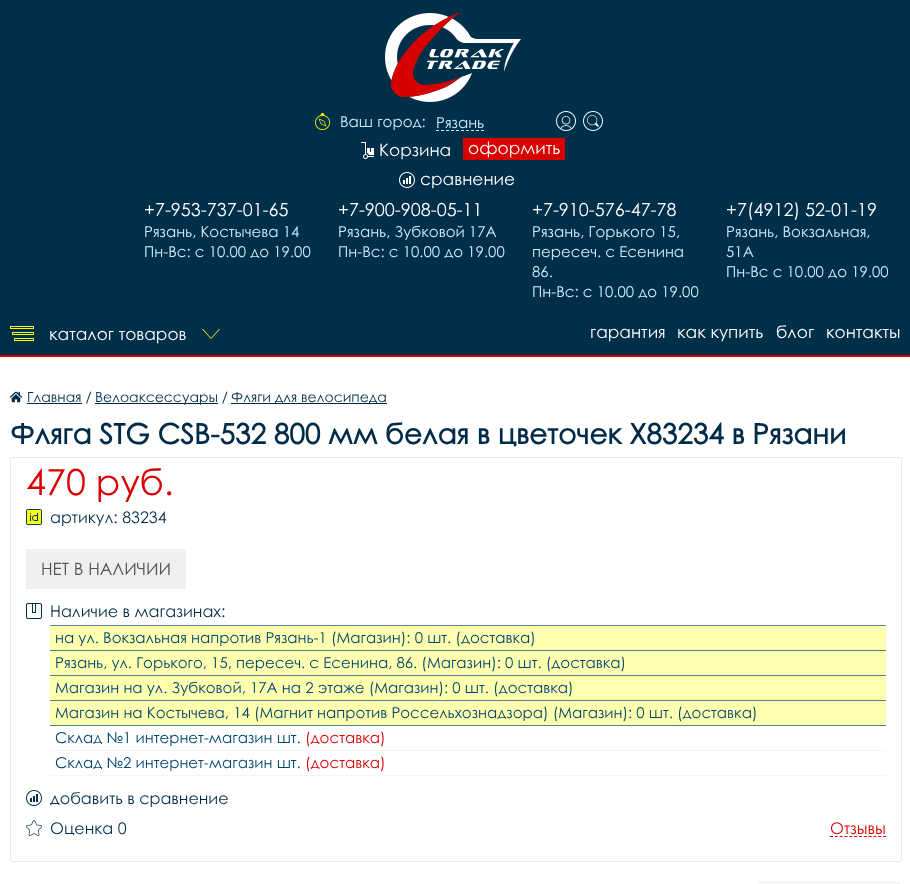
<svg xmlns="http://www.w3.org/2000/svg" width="910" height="884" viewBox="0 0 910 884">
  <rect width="100%" height="100%" fill="#ffffff"/>
  <rect x="0" y="0" width="910" height="355" fill="#002f4a"/>
  <rect x="0" y="355" width="910" height="2" fill="#d90000"/>
  <image x="385" y="12" width="136" height="90" href="img1.png"/>
  <image x="315" y="113" width="15" height="17" href="img2.png"/>
  <text x="340" y="127" font-family="Century Gothic" font-size="15" fill="#cdecff">Ваш город:</text>
  <path d="M436 130.5H484" fill="none" stroke="#cdecff" stroke-dasharray="3 2"/>
  <text x="436" y="128" font-family="Century Gothic" font-size="15" fill="#cdecff">Рязань</text>
  <image x="556" y="111" width="20" height="20" href="img3.png"/>
  <image x="583" y="111" width="20" height="20" href="img4.png"/>
  <image x="361" y="142" width="13" height="17" href="img5.png"/>
  <text x="379" y="156" font-family="Century Gothic" font-size="17" fill="#ffffff">Корзина</text>
  <rect x="463" y="138" width="102" height="22" fill="#d90000"/>
  <text x="468" y="154" font-family="Century Gothic" font-size="17" fill="#ffffff">оформить</text>
  <image x="399" y="172" width="16" height="16" href="img6.png"/>
  <text x="420" y="185" font-family="Century Gothic" font-size="17" fill="#ffffff">сравнение</text>
  <text x="144" y="216" font-family="Century Gothic" font-size="18" fill="#ffffff">+7-953-737-01-65</text>
  <text x="144" y="237" font-family="Century Gothic" font-size="15" fill="#cdecff">Рязань, Костычева 14</text>
  <text x="144" y="257" font-family="Century Gothic" font-size="15" fill="#cdecff">Пн-Вс: с 10.00 до 19.00</text>
  <text x="338" y="216" font-family="Century Gothic" font-size="18" fill="#ffffff">+7-900-908-05-11</text>
  <text x="338" y="237" font-family="Century Gothic" font-size="15" fill="#cdecff">Рязань, Зубковой 17А</text>
  <text x="338" y="257" font-family="Century Gothic" font-size="15" fill="#cdecff">Пн-Вс: с 10.00 до 19.00</text>
  <text x="532" y="216" font-family="Century Gothic" font-size="18" fill="#ffffff">+7-910-576-47-78</text>
  <text x="532" y="237" font-family="Century Gothic" font-size="15" fill="#cdecff">Рязань, Горького 15,</text>
  <text x="532" y="257" font-family="Century Gothic" font-size="15" fill="#cdecff">пересеч. с Есенина</text>
  <text x="532" y="277" font-family="Century Gothic" font-size="15" fill="#cdecff">86.</text>
  <text x="532" y="297" font-family="Century Gothic" font-size="15" fill="#cdecff">Пн-Вс: с 10.00 до 19.00</text>
  <text x="726" y="216" font-family="Century Gothic" font-size="18" fill="#ffffff">+7(4912) 52-01-19</text>
  <text x="726" y="237" font-family="Century Gothic" font-size="15" fill="#cdecff">Рязань, Вокзальная,</text>
  <text x="726" y="257" font-family="Century Gothic" font-size="15" fill="#cdecff">51А</text>
  <text x="726" y="277" font-family="Century Gothic" font-size="15" fill="#cdecff">Пн-Вс с 10.00 до 19.00</text>
  <image x="10" y="326" width="24" height="15" href="img7.png"/>
  <text x="49" y="340" font-family="Century Gothic" font-size="17" fill="#ffffff">каталог товаров</text>
  <path d="M220 329H219L211 338L203 329H202L211 339Z" fill="#ffff00" fill-rule="evenodd"/>
  <text x="590" y="338" font-family="Century Gothic" font-size="17" fill="#ffffff">гарантия</text>
  <text x="677" y="338" font-family="Century Gothic" font-size="17" fill="#ffffff">как купить</text>
  <text x="776" y="338" font-family="Century Gothic" font-size="17" fill="#ffffff">блог</text>
  <text x="826" y="338" font-family="Century Gothic" font-size="17" fill="#ffffff">контакты</text>
  <image x="10" y="391" width="12" height="12" href="img8.png"/>
  <rect x="27" y="403" width="55" height="1" fill="#002c4a"/>
  <text x="27" y="402" font-family="Century Gothic" font-size="14" fill="#002c4a">Главная /</text>
  <rect x="95" y="403" width="123" height="1" fill="#002c4a"/>
  <text x="95" y="402" font-family="Century Gothic" font-size="14" fill="#002c4a">Велоаксессуары /</text>
  <text x="231" y="402" font-family="Century Gothic" font-size="14" fill="#002c4a">Фляги для велосипеда</text>
  <rect x="231" y="403" width="156" height="1" fill="#002c4a"/>
  <text x="10" y="444" font-family="Century Gothic" font-size="28" font-weight="bold" fill="#002c4a">Фляга STG CSB-532 800 мм белая в цветочек X83234 в Рязани</text>
  <rect x="10.5" y="457.5" width="891" height="404" rx="1.5" fill="none" stroke="#e9e9e9"/>
  <text x="26" y="495" font-family="Century Gothic" font-size="36" fill="#d80000">470 руб.</text>
  <image x="26" y="509" width="16" height="16" href="img9.png"/>
  <text x="50" y="523" font-family="Century Gothic" font-size="16" fill="#002c4a">артикул: 83234</text>
  <rect x="26" y="549" width="160" height="40" fill="#efefef"/>
  <text x="41" y="575" font-family="Century Gothic" font-size="17" fill="#555555">НЕТ В НАЛИЧИИ</text>
  <image x="26" y="603" width="16" height="16" href="img10.png"/>
  <rect x="50" y="625" width="836" height="1" fill="#5584a0"/>
  <text x="50" y="617" font-family="Century Gothic" font-size="16" fill="#002c4a">Наличие в магазинах:</text>
  <rect x="50" y="626" width="836" height="24" fill="#ffffb0"/>
  <rect x="50" y="650" width="836" height="1" fill="#558485"/>
  <text x="55" y="643" font-family="Century Gothic" font-size="15" fill="#004670">на ул. Вокзальная напротив Рязань-1 (Магазин): 0 шт. (доставка)</text>
  <rect x="50" y="651" width="836" height="24" fill="#ffffb0"/>
  <rect x="50" y="675" width="836" height="1" fill="#558485"/>
  <text x="55" y="668" font-family="Century Gothic" font-size="15" fill="#004670">Рязань, ул. Горького, 15, пересеч. с Есенина, 86. (Магазин): 0 шт. (доставка)</text>
  <rect x="50" y="676" width="836" height="24" fill="#ffffb0"/>
  <rect x="50" y="700" width="836" height="1" fill="#558485"/>
  <text x="55" y="693" font-family="Century Gothic" font-size="15" fill="#004670">Магазин на ул. Зубковой, 17А на 2 этаже (Магазин): 0 шт. (доставка)</text>
  <rect x="50" y="701" width="836" height="24" fill="#ffffb0"/>
  <rect x="50" y="725" width="836" height="1" fill="#558485"/>
  <text x="55" y="718" font-family="Century Gothic" font-size="15" fill="#004670">Магазин на Костычева, 14 (Магнит напротив Россельхознадзора) (Магазин): 0 шт. (доставка)</text>
  <rect x="50" y="750" width="836" height="1" fill="#f5f5f5"/>
  <text x="55" y="743" font-family="Century Gothic" font-size="15" fill="#004670">Склад №1 интернет-магазин шт.</text>
  <text x="305" y="743" font-family="Century Gothic" font-size="15" fill="#d80000">(доставка)</text>
  <rect x="50" y="775" width="836" height="1" fill="#f5f5f5"/>
  <text x="55" y="768" font-family="Century Gothic" font-size="15" fill="#004670">Склад №2 интернет-магазин шт.</text>
  <text x="305" y="768" font-family="Century Gothic" font-size="15" fill="#d80000">(доставка)</text>
  <image x="26" y="790" width="16" height="16" href="img11.png"/>
  <text x="50" y="804" font-family="Century Gothic" font-size="16" fill="#002c4a">добавить в сравнение</text>
  <image x="26" y="820" width="16" height="16" href="img12.png"/>
  <text x="50" y="834" font-family="Century Gothic" font-size="16" fill="#002c4a">Оценка 0</text>
  <path d="M830 836.5H886" fill="none" stroke="#d90000" stroke-dasharray="3 1.82"/>
  <text x="830" y="834" font-family="Century Gothic" font-size="16" fill="#d80000">Отзывы</text>
  <rect x="758.5" y="882.5" width="141" height="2" fill="none" stroke="#eeeeee"/>
</svg>
